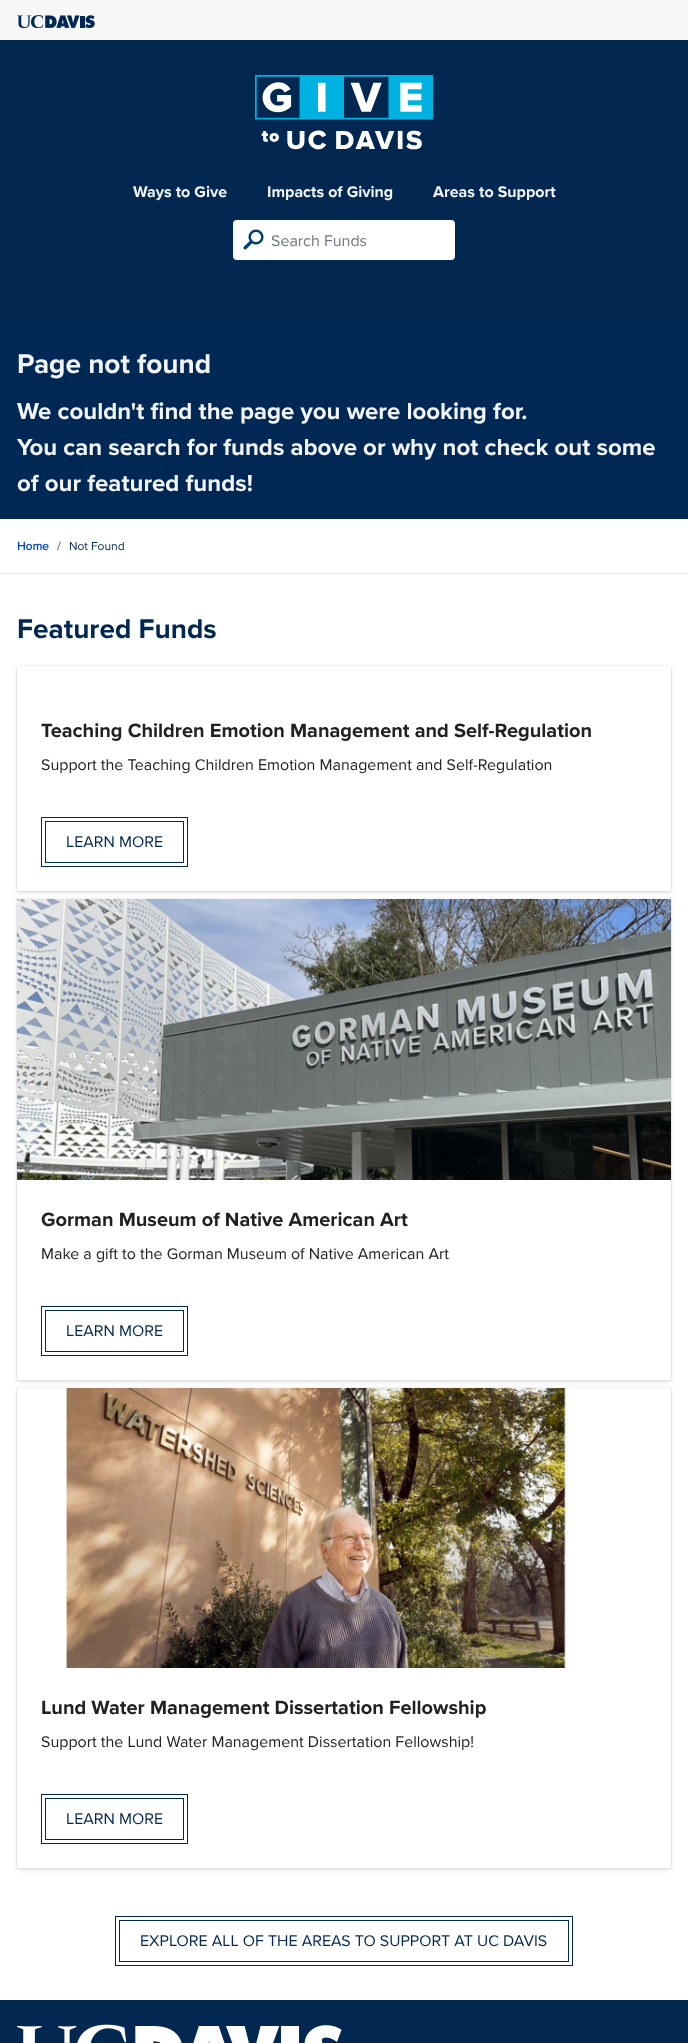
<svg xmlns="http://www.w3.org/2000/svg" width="688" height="2043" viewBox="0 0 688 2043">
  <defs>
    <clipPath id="clip1"><path d="M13 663H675V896H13ZM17 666H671V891H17Z" clip-rule="evenodd"/></clipPath>
    <filter id="blur1" x="-50%" y="-200%" width="200%" height="500%"><feGaussianBlur stdDeviation="1"/></filter>
    <clipPath id="clip2"><path d="M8 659H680V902H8ZM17 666H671V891H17Z" clip-rule="evenodd"/></clipPath>
    <filter id="blur2" x="-50%" y="-200%" width="200%" height="500%"><feGaussianBlur stdDeviation="2.5"/></filter>
    <clipPath id="clip3"><path d="M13 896H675V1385H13ZM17 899H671V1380H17Z" clip-rule="evenodd"/></clipPath>
    <clipPath id="clip4"><path d="M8 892H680V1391H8ZM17 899H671V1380H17Z" clip-rule="evenodd"/></clipPath>
    <clipPath id="clip5"><path d="M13 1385H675V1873H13ZM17 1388H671V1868H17Z" clip-rule="evenodd"/></clipPath>
    <clipPath id="clip6"><path d="M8 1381H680V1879H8ZM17 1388H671V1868H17Z" clip-rule="evenodd"/></clipPath>
  </defs>
  <rect width="100%" height="100%" fill="#ffffff"/>
  <rect x="0" y="0" width="688" height="40" fill="#f7f7f7"/>
  <image x="17" y="15" width="78" height="14" href="img1.png"/>
  <rect x="0" y="40" width="688" height="282" fill="#022851"/>
  <image x="255" y="75" width="178" height="75" href="img2.png"/>
  <text x="133" y="197" font-family="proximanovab" font-size="16" font-weight="bold" fill="#f2f4f7">Ways to Give</text>
  <text x="267" y="197" font-family="proximanovab" font-size="16" font-weight="bold" fill="#f2f4f7">Impacts of Giving</text>
  <text x="433" y="197" font-family="proximanovab" font-size="16" font-weight="bold" fill="#f2f4f7">Areas to Support</text>
  <rect x="233" y="220" width="222" height="40" rx="4" fill="#ffffff"/>
  <image x="243" y="229" width="21" height="21" href="img3.png"/>
  <text x="271" y="246" font-family="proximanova" font-size="16" fill="#6c757d">Search Funds</text>
  <rect x="0" y="322" width="688" height="197" fill="#002855"/>
  <text x="17" y="373" font-family="proximanovab" font-size="28" font-weight="bold" fill="#f2f4f7">Page not found</text>
  <text x="17" y="419" font-family="proximanovab" font-size="24" font-weight="bold" fill="#f2f4f7">We couldn't find the page you were looking for.</text>
  <text x="17" y="455" font-family="proximanovab" font-size="24" font-weight="bold" fill="#f2f4f7">You can search for funds above or why not check out some</text>
  <text x="17" y="491" font-family="proximanovab" font-size="24" font-weight="bold" fill="#f2f4f7">of our featured funds!</text>
  <rect x="0" y="573" width="688" height="1" fill="#e1e9f0"/>
  <text x="17" y="550" font-family="proximanova" font-size="12" font-weight="bold" fill="#0047ba">Home</text>
  <text x="57" y="550" font-family="proximanova" font-size="12" font-weight="bold" fill="#6c757d">/</text>
  <text x="69" y="550" font-family="proximanova" font-size="12" fill="#022851">Not Found</text>
  <text x="17" y="638" font-family="proximanovab" font-size="28" font-weight="bold" fill="#022851">Featured Funds</text>
  <g clip-path="url(#clip1)">
    <rect x="17" y="667" width="654" height="225" fill="#000000" fill-opacity="0.08" filter="url(#blur1)"/>
  </g>
  <g clip-path="url(#clip2)">
    <rect x="17" y="668" width="654" height="225" fill="#31315d" fill-opacity="0.1" filter="url(#blur2)"/>
  </g>
  <rect x="16.5" y="665.5" width="655" height="226" fill="none" stroke="#31315d" stroke-opacity="0.03"/>
  <text x="41" y="737" font-family="proximanovab" font-size="20" font-weight="bold" fill="#212121">Teaching Children Emotion Management and Self-Regulation</text>
  <text x="41" y="770" font-family="proximanova" font-size="16" fill="#212121">Support the Teaching Children Emotion Management and Self-Regulation</text>
  <rect x="41.5" y="817.5" width="146" height="49" fill="none" stroke="#022851"/>
  <rect x="45.5" y="821.5" width="138" height="41" fill="none" stroke="#022851"/>
  <text x="66" y="847" font-family="proximanova" font-size="16" fill="#022851">LEARN MORE</text>
  <g clip-path="url(#clip3)">
    <rect x="17" y="900" width="654" height="481" fill="#000000" fill-opacity="0.08" filter="url(#blur1)"/>
  </g>
  <g clip-path="url(#clip4)">
    <rect x="17" y="901" width="654" height="481" fill="#31315d" fill-opacity="0.1" filter="url(#blur2)"/>
  </g>
  <rect x="16.5" y="898.5" width="655" height="482" fill="none" stroke="#31315d" stroke-opacity="0.03"/>
  <image x="17" y="899" width="654" height="281" href="img4.png"/>
  <text x="41" y="1226" font-family="proximanovab" font-size="20" font-weight="bold" fill="#212121">Gorman Museum of Native American Art</text>
  <text x="41" y="1259" font-family="proximanova" font-size="16" fill="#212121">Make a gift to the Gorman Museum of Native American Art</text>
  <rect x="41.5" y="1306.5" width="146" height="49" fill="none" stroke="#022851"/>
  <rect x="45.5" y="1310.5" width="138" height="41" fill="none" stroke="#022851"/>
  <text x="66" y="1336" font-family="proximanova" font-size="16" fill="#022851">LEARN MORE</text>
  <g clip-path="url(#clip5)">
    <rect x="17" y="1389" width="654" height="480" fill="#000000" fill-opacity="0.08" filter="url(#blur1)"/>
  </g>
  <g clip-path="url(#clip6)">
    <rect x="17" y="1390" width="654" height="480" fill="#31315d" fill-opacity="0.1" filter="url(#blur2)"/>
  </g>
  <rect x="16.5" y="1387.5" width="655" height="481" fill="none" stroke="#31315d" stroke-opacity="0.03"/>
  <image x="66" y="1388" width="500" height="280" href="img5.png"/>
  <text x="41" y="1714" font-family="proximanovab" font-size="20" font-weight="bold" fill="#212121">Lund Water Management Dissertation Fellowship</text>
  <text x="41" y="1747" font-family="proximanova" font-size="16" fill="#212121">Support the Lund Water Management Dissertation Fellowship!</text>
  <rect x="41.5" y="1794.5" width="146" height="49" fill="none" stroke="#022851"/>
  <rect x="45.5" y="1798.5" width="138" height="41" fill="none" stroke="#022851"/>
  <text x="66" y="1824" font-family="proximanova" font-size="16" fill="#022851">LEARN MORE</text>
  <rect x="115.5" y="1916.5" width="457" height="49" fill="none" stroke="#022851"/>
  <rect x="119.5" y="1920.5" width="449" height="41" fill="none" stroke="#022851"/>
  <text x="140" y="1946" font-family="proximanova" font-size="16" fill="#022851">EXPLORE ALL OF THE AREAS TO SUPPORT AT UC DAVIS</text>
  <rect x="0" y="2000" width="688" height="43" fill="#022851"/>
  <image x="17" y="2024" width="325" height="19" href="img6.png"/>
</svg>
